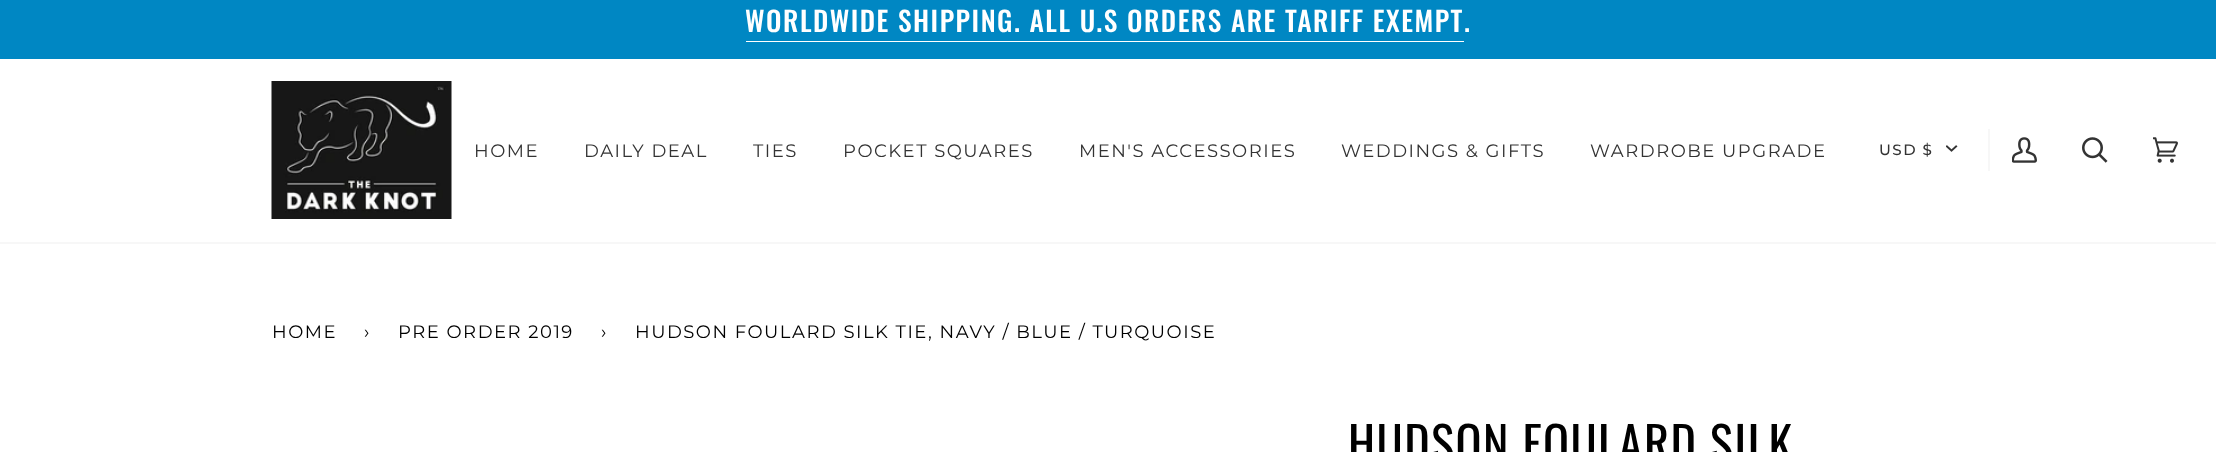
<svg xmlns="http://www.w3.org/2000/svg" width="2216" height="452" viewBox="0 0 2216 452">
  <rect width="100%" height="100%" fill="#ffffff"/>
  <rect x="0" y="0" width="2216" height="59" fill="#0087c3"/>
  <text x="745" y="32" font-family="Oswald" font-size="27.45" font-weight="500" letter-spacing="1.5" fill="#ffffff">WORLDWIDE SHIPPING. ALL U.S ORDERS ARE TARIFF EXEMPT</text>
  <rect x="746" y="41" width="718" height="1" fill="#ffffff"/>
  <text x="1464" y="32" font-family="Oswald" font-size="27.45" font-weight="500" letter-spacing="1.5" fill="#ffffff">.</text>
  <rect x="0" y="242" width="2216" height="2" fill="#f7f7f7"/>
  <image x="271" y="81" width="181" height="138" href="img1.png"/>
  <text x="474" y="157" font-family="Montserrat" font-size="18" letter-spacing="1.5" fill="#333333">HOME</text>
  <text x="584" y="157" font-family="Montserrat" font-size="18" letter-spacing="1.5" fill="#333333">DAILY DEAL</text>
  <text x="753" y="157" font-family="Montserrat" font-size="18" letter-spacing="1.5" fill="#333333">TIES</text>
  <text x="843" y="157" font-family="Montserrat" font-size="18" letter-spacing="1.5" fill="#333333">POCKET SQUARES</text>
  <text x="1079" y="157" font-family="Montserrat" font-size="18" letter-spacing="1.5" fill="#333333">MEN'S ACCESSORIES</text>
  <text x="1341" y="157" font-family="Montserrat" font-size="18" letter-spacing="1.5" fill="#333333">WEDDINGS &amp; GIFTS</text>
  <text x="1590" y="157" font-family="Montserrat" font-size="18" letter-spacing="1.5" fill="#333333">WARDROBE UPGRADE</text>
  <rect x="1988" y="129" width="2" height="42" fill="#f7f7f7"/>
  <text x="1879" y="155" font-family="Montserrat" font-size="15" font-weight="500" letter-spacing="1.5" fill="#333333">USD $</text>
  <image x="1946" y="145" width="12" height="7" href="img2.png"/>
  <image x="2012" y="137" width="25" height="26" href="img3.png"/>
  <image x="2082" y="137" width="26" height="26" href="img4.png"/>
  <image x="2153" y="137" width="25" height="26" href="img5.png"/>
  <text x="272" y="338" font-family="Montserrat" font-size="18" letter-spacing="1.5" fill="#000000">HOME</text>
  <text x="364" y="338" font-family="Montserrat" font-size="18" letter-spacing="1.5" fill="#000000">›</text>
  <text x="398" y="338" font-family="Montserrat" font-size="18" letter-spacing="1.5" fill="#000000">PRE ORDER 2019</text>
  <text x="601" y="338" font-family="Montserrat" font-size="18" letter-spacing="1.5" fill="#000000">›</text>
  <text x="635" y="338" font-family="Montserrat" font-size="18" letter-spacing="1.5" fill="#000000">HUDSON FOULARD SILK TIE, NAVY / BLUE / TURQUOISE</text>
  <text x="1348" y="463" font-family="Oswald" font-size="48.25" letter-spacing="1.5" fill="#000000">HUDSON FOULARD SILK</text>
</svg>
